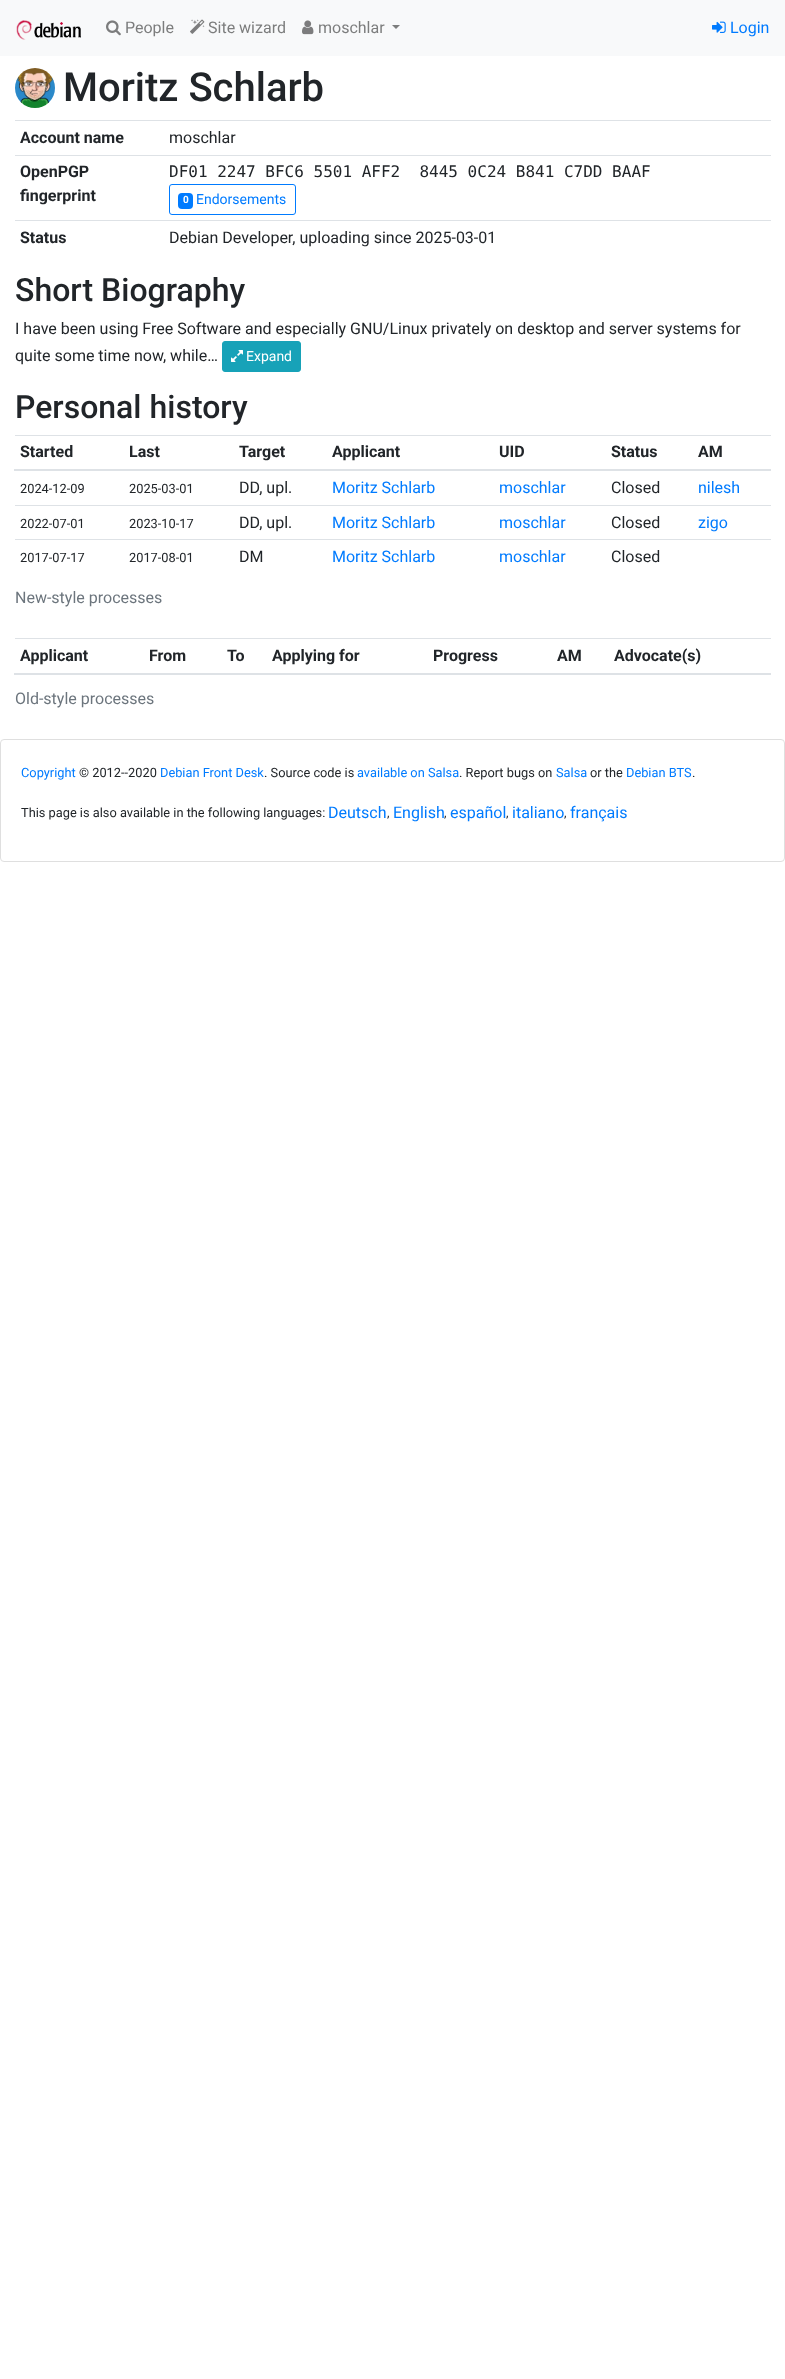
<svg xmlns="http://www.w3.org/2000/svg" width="785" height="2379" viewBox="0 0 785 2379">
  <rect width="100%" height="100%" fill="#ffffff"/>
  <rect x="0" y="0" width="785" height="56" fill="#f8f9fa"/>
  <image x="16" y="20" width="65" height="20" href="img1.png"/>
  <image x="106" y="20" width="15" height="16" href="img2.png"/>
  <text x="125" y="33" font-family="Roboto" font-size="16" fill="#7c7d7d">People</text>
  <image x="190" y="19" width="15" height="15" href="img3.png"/>
  <text x="208" y="33" font-family="Roboto" font-size="16" fill="#7c7d7d">Site wizard</text>
  <image x="302" y="20" width="12" height="15" href="img4.png"/>
  <text x="318" y="33" font-family="Roboto" font-size="16" fill="#7c7d7d">moschlar</text>
  <path d="M392 25H400L396 29Z" fill="#7c7d7d"/>
  <image x="712" y="21" width="14" height="12" href="img5.png"/>
  <text x="730" y="33" font-family="Roboto" font-size="16" fill="#007bff">Login</text>
  <image x="15" y="68" width="40" height="40" href="img6.png"/>
  <text x="63" y="101" font-family="Roboto" font-size="40" font-weight="500" fill="#212529">Moritz Schlarb</text>
  <text x="20" y="143" font-family="Roboto" font-size="16" font-weight="bold" fill="#212529">Account name</text>
  <rect x="15" y="120" width="756" height="1" fill="#dee2e6"/>
  <text x="169" y="143" font-family="Roboto" font-size="16" fill="#212529">moschlar</text>
  <text x="20" y="177" font-family="Roboto" font-size="16" font-weight="bold" fill="#212529">OpenPGP</text>
  <text x="20" y="201" font-family="Roboto" font-size="16" font-weight="bold" fill="#212529">fingerprint</text>
  <rect x="15" y="155" width="756" height="1" fill="#dee2e6"/>
  <text x="169" y="177" font-family="DejaVu Sans Mono" font-size="16" fill="#212529" xml:space="preserve">DF01 2247 BFC6 5501 AFF2  8445 0C24 B841 C7DD BAAF</text>
  <rect x="169.5" y="184.5" width="126" height="30" rx="2.5" fill="none" stroke="#007bff"/>
  <rect x="178" y="193" width="15" height="16" rx="4" fill="#007bff"/>
  <text x="183" y="203" font-family="Roboto" font-size="10" font-weight="bold" fill="#ffffff">0</text>
  <text x="196" y="204" font-family="Roboto" font-size="14" fill="#007bff">Endorsements</text>
  <text x="20" y="243" font-family="Roboto" font-size="16" font-weight="bold" fill="#212529">Status</text>
  <rect x="15" y="220" width="756" height="1" fill="#dee2e6"/>
  <text x="169" y="243" font-family="Roboto" font-size="16" fill="#212529">Debian Developer, uploading since 2025-03-01</text>
  <text x="15" y="301" font-family="Roboto" font-size="32" font-weight="500" fill="#212529">Short Biography</text>
  <text x="15" y="334" font-family="Roboto" font-size="16" fill="#212529">I have been using Free Software and especially GNU/Linux privately on desktop and server systems for</text>
  <text x="15" y="361" font-family="Roboto" font-size="16" fill="#212529">quite some time now, while…</text>
  <rect x="222.5" y="341.5" width="78" height="30" rx="2.5" fill="#17a2b8" stroke="#17a2b8"/>
  <image x="231" y="350" width="12" height="12" href="img7.png"/>
  <text x="246" y="361" font-family="Roboto" font-size="14" fill="#ffffff">Expand</text>
  <text x="15" y="418" font-family="Roboto" font-size="32" font-weight="500" fill="#212529">Personal history</text>
  <text x="20" y="457" font-family="Roboto" font-size="16" font-weight="bold" fill="#212529">Started</text>
  <text x="129" y="457" font-family="Roboto" font-size="16" font-weight="bold" fill="#212529">Last</text>
  <text x="239" y="457" font-family="Roboto" font-size="16" font-weight="bold" fill="#212529">Target</text>
  <text x="332" y="457" font-family="Roboto" font-size="16" font-weight="bold" fill="#212529">Applicant</text>
  <text x="499" y="457" font-family="Roboto" font-size="16" font-weight="bold" fill="#212529">UID</text>
  <text x="611" y="457" font-family="Roboto" font-size="16" font-weight="bold" fill="#212529">Status</text>
  <rect x="15" y="435" width="756" height="1" fill="#dee2e6"/>
  <rect x="14" y="469" width="757" height="2" fill="#dee2e6"/>
  <text x="698" y="457" font-family="Roboto" font-size="16" font-weight="bold" fill="#212529">AM</text>
  <text x="20" y="493" font-family="Roboto" font-size="12.8" fill="#212529">2024-12-09</text>
  <text x="129" y="493" font-family="Roboto" font-size="12.8" fill="#212529">2025-03-01</text>
  <text x="239" y="493" font-family="Roboto" font-size="16" fill="#212529">DD, upl.</text>
  <text x="332" y="493" font-family="Roboto" font-size="16" fill="#007bff">Moritz Schlarb</text>
  <text x="499" y="493" font-family="Roboto" font-size="16" fill="#007bff">moschlar</text>
  <text x="611" y="493" font-family="Roboto" font-size="16" fill="#212529">Closed</text>
  <text x="698" y="493" font-family="Roboto" font-size="16" fill="#007bff">nilesh</text>
  <text x="20" y="528" font-family="Roboto" font-size="12.8" fill="#212529">2022-07-01</text>
  <text x="129" y="528" font-family="Roboto" font-size="12.8" fill="#212529">2023-10-17</text>
  <text x="239" y="528" font-family="Roboto" font-size="16" fill="#212529">DD, upl.</text>
  <text x="332" y="528" font-family="Roboto" font-size="16" fill="#007bff">Moritz Schlarb</text>
  <text x="499" y="528" font-family="Roboto" font-size="16" fill="#007bff">moschlar</text>
  <text x="611" y="528" font-family="Roboto" font-size="16" fill="#212529">Closed</text>
  <rect x="15" y="505" width="756" height="1" fill="#dee2e6"/>
  <text x="698" y="528" font-family="Roboto" font-size="16" fill="#007bff">zigo</text>
  <rect x="15" y="539" width="756" height="1" fill="#dee2e6"/>
  <text x="20" y="562" font-family="Roboto" font-size="12.8" fill="#212529">2017-07-17</text>
  <text x="129" y="562" font-family="Roboto" font-size="12.8" fill="#212529">2017-08-01</text>
  <text x="239" y="562" font-family="Roboto" font-size="16" fill="#212529">DM</text>
  <text x="332" y="562" font-family="Roboto" font-size="16" fill="#007bff">Moritz Schlarb</text>
  <text x="499" y="562" font-family="Roboto" font-size="16" fill="#007bff">moschlar</text>
  <text x="611" y="562" font-family="Roboto" font-size="16" fill="#212529">Closed</text>
  <text x="15" y="603" font-family="Roboto" font-size="16" fill="#6c757d">New-style processes</text>
  <text x="20" y="661" font-family="Roboto" font-size="16" font-weight="bold" fill="#212529">Applicant</text>
  <text x="149" y="661" font-family="Roboto" font-size="16" font-weight="bold" fill="#212529">From</text>
  <text x="227" y="661" font-family="Roboto" font-size="16" font-weight="bold" fill="#212529">To</text>
  <text x="272" y="661" font-family="Roboto" font-size="16" font-weight="bold" fill="#212529">Applying for</text>
  <text x="433" y="661" font-family="Roboto" font-size="16" font-weight="bold" fill="#212529">Progress</text>
  <text x="557" y="661" font-family="Roboto" font-size="16" font-weight="bold" fill="#212529">AM</text>
  <rect x="15" y="638" width="756" height="1" fill="#dee2e6"/>
  <rect x="14" y="673" width="757" height="2" fill="#dee2e6"/>
  <text x="614" y="661" font-family="Roboto" font-size="16" font-weight="bold" fill="#212529">Advocate(s)</text>
  <text x="15" y="704" font-family="Roboto" font-size="16" fill="#6c757d">Old-style processes</text>
  <rect x="0.5" y="739.5" width="784" height="122" rx="3.5" fill="none" stroke="#dfdfdf"/>
  <text x="21" y="777" font-family="Roboto" font-size="12.8" fill="#007bff">Copyright</text>
  <text x="79" y="777" font-family="Roboto" font-size="12.8" fill="#212529">© 2012--2020</text>
  <text x="160" y="777" font-family="Roboto" font-size="12.8" fill="#007bff">Debian Front Desk</text>
  <text x="264" y="777" font-family="Roboto" font-size="12.8" fill="#212529">. Source code is</text>
  <text x="357" y="777" font-family="Roboto" font-size="12.8" fill="#007bff">available on Salsa</text>
  <text x="459" y="777" font-family="Roboto" font-size="12.8" fill="#212529">. Report bugs on</text>
  <text x="556" y="777" font-family="Roboto" font-size="12.8" fill="#007bff">Salsa</text>
  <text x="590" y="777" font-family="Roboto" font-size="12.8" fill="#212529">or the</text>
  <text x="626" y="777" font-family="Roboto" font-size="12.8" fill="#007bff">Debian BTS</text>
  <text x="692" y="777" font-family="Roboto" font-size="12.8" fill="#212529">.</text>
  <text x="21" y="817" font-family="Roboto" font-size="12.8" fill="#212529">This page is also available in the following languages:</text>
  <text x="328" y="818" font-family="Roboto" font-size="16" fill="#007bff">Deutsch</text>
  <text x="387" y="817" font-family="Roboto" font-size="12.8" fill="#212529">,</text>
  <text x="393" y="818" font-family="Roboto" font-size="16" fill="#007bff">English</text>
  <text x="444" y="817" font-family="Roboto" font-size="12.8" fill="#212529">,</text>
  <text x="450" y="818" font-family="Roboto" font-size="16" fill="#007bff">español</text>
  <text x="506" y="817" font-family="Roboto" font-size="12.8" fill="#212529">,</text>
  <text x="512" y="818" font-family="Roboto" font-size="16" fill="#007bff">italiano</text>
  <text x="564" y="817" font-family="Roboto" font-size="12.8" fill="#212529">,</text>
  <text x="570" y="818" font-family="Roboto" font-size="16" fill="#007bff">français</text>
</svg>
